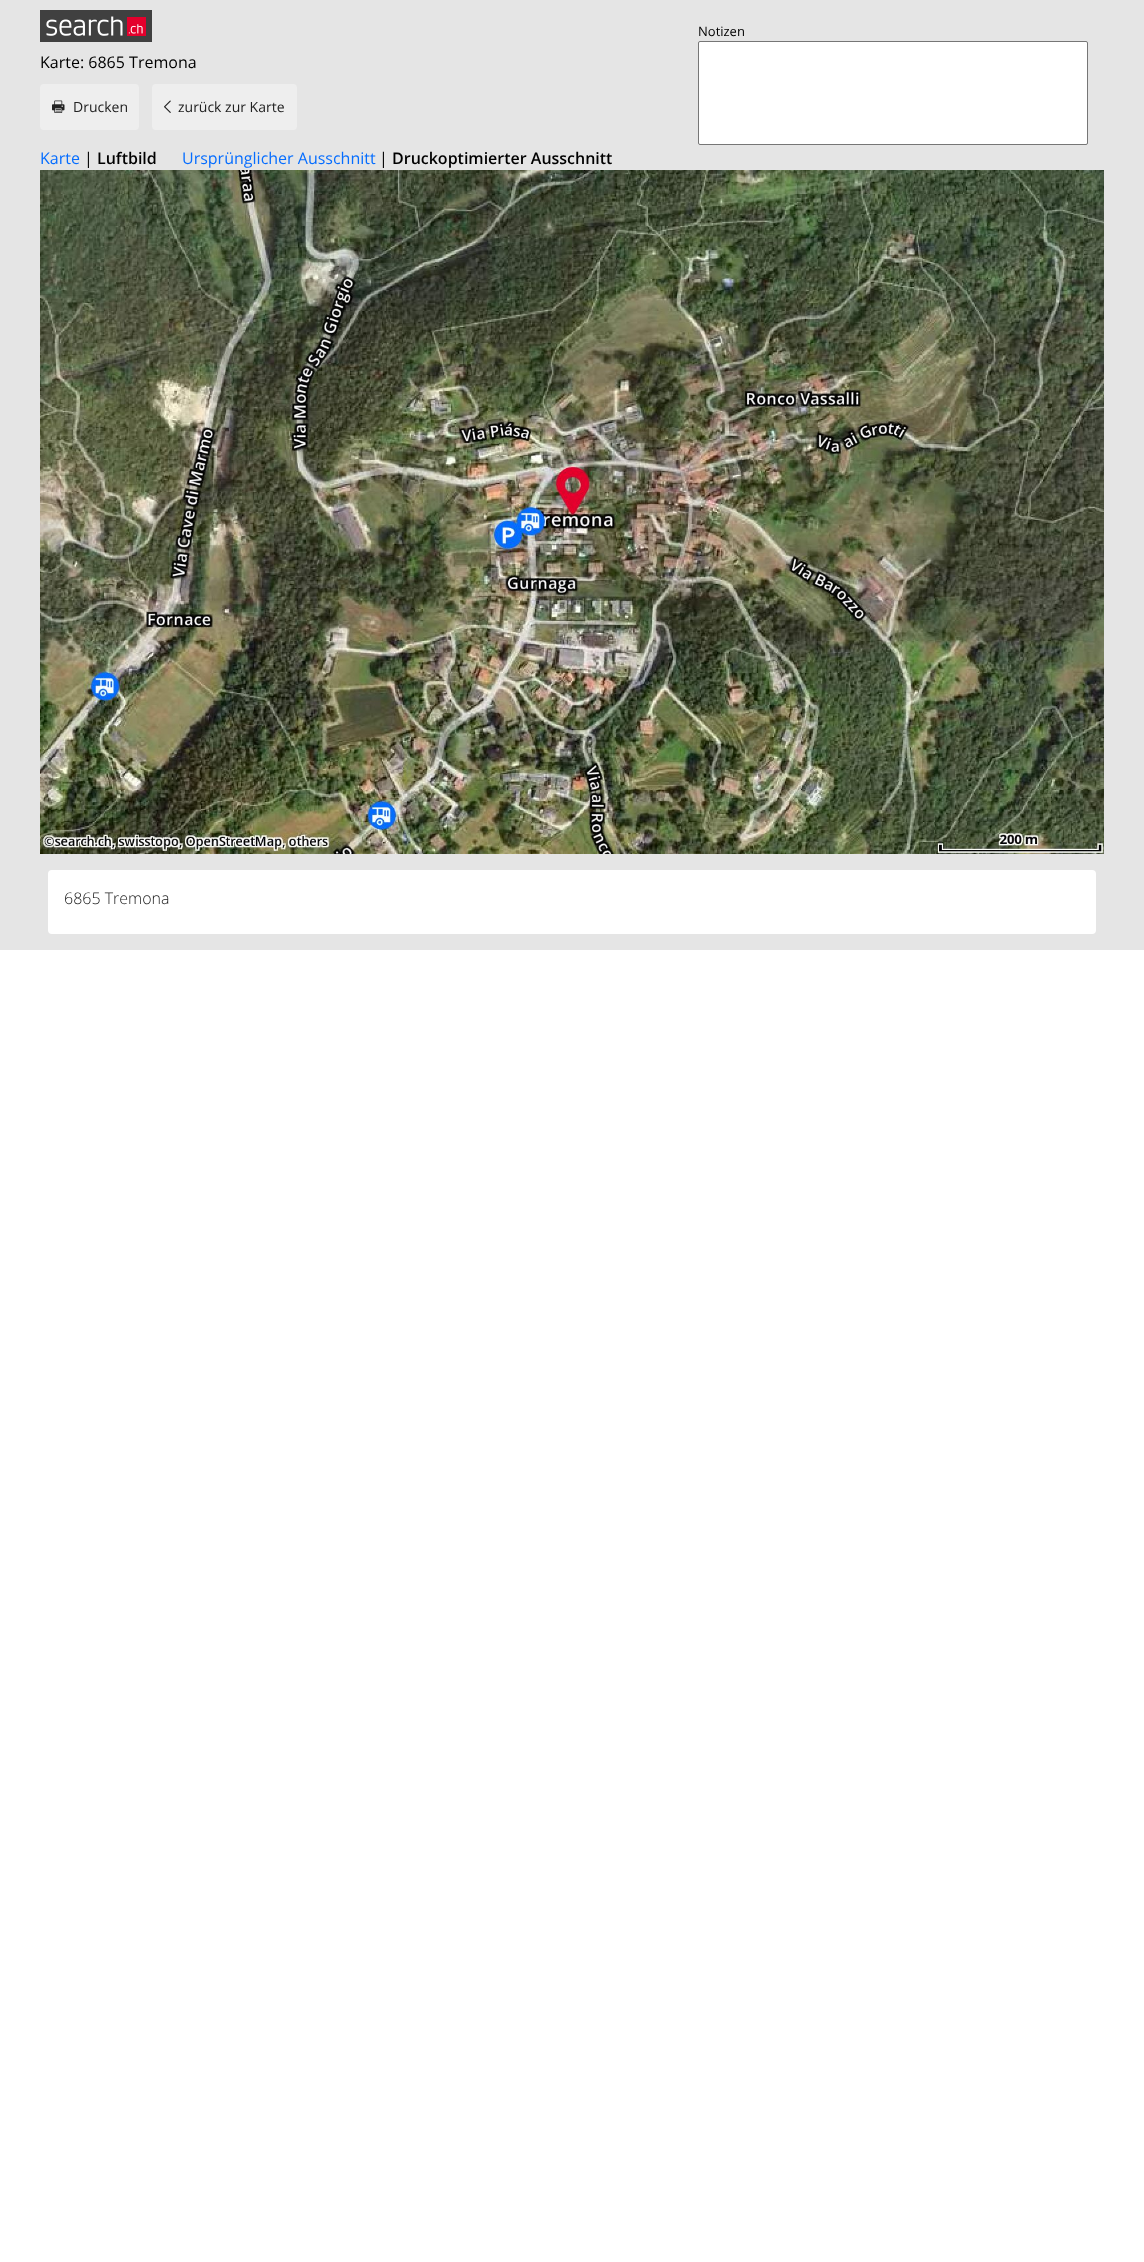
<svg xmlns="http://www.w3.org/2000/svg" width="1144" height="2262" viewBox="0 0 1144 2262">
  <rect width="100%" height="100%" fill="#ffffff"/>
  <rect x="0" y="0" width="1144" height="950" fill="#e5e5e5"/>
  <text x="698" y="36" font-family="Open Sans" font-size="13" fill="#000000">Notizen</text>
  <rect x="698.5" y="41.5" width="389" height="103" rx="1.5" fill="#ffffff" stroke="#767676"/>
  <image x="40" y="10" width="112" height="32" href="img1.png"/>
  <text x="40" y="68" font-family="Open Sans" font-size="16" fill="#000000">Karte: 6865 Tremona</text>
  <rect x="40" y="84" width="99" height="46" rx="4" fill="#eeeeee"/>
  <image x="52" y="100" width="13" height="13" href="img2.png"/>
  <text x="73" y="112" font-family="Open Sans" font-size="14" fill="#222222">Drucken</text>
  <rect x="152" y="84" width="145" height="46" rx="4" fill="#eeeeee"/>
  <image x="164" y="100" width="7" height="13" href="img3.png"/>
  <text x="178" y="112" font-family="Open Sans" font-size="14" fill="#222222">zurück zur Karte</text>
  <text x="40" y="164" font-family="Open Sans" font-size="16" fill="#056dff">Karte</text>
  <text x="84" y="164" font-family="Open Sans" font-size="16" fill="#000000">|</text>
  <text x="97" y="164" font-family="Open Sans" font-size="16" font-weight="600" fill="#000000">Luftbild</text>
  <text x="182" y="164" font-family="Open Sans" font-size="16" fill="#056dff">Ursprünglicher Ausschnitt</text>
  <text x="379" y="164" font-family="Open Sans" font-size="16" fill="#000000">|</text>
  <text x="392" y="164" font-family="Open Sans" font-size="16" font-weight="600" fill="#000000">Druckoptimierter Ausschnitt</text>
  <image x="40" y="170" width="1064" height="684" href="img4.png"/>
  <rect x="48" y="870" width="1048" height="64" rx="4" fill="#ffffff"/>
  <text x="64" y="904" font-family="Open Sans" font-size="16" font-weight="300" fill="#222222">6865 Tremona</text>
</svg>
